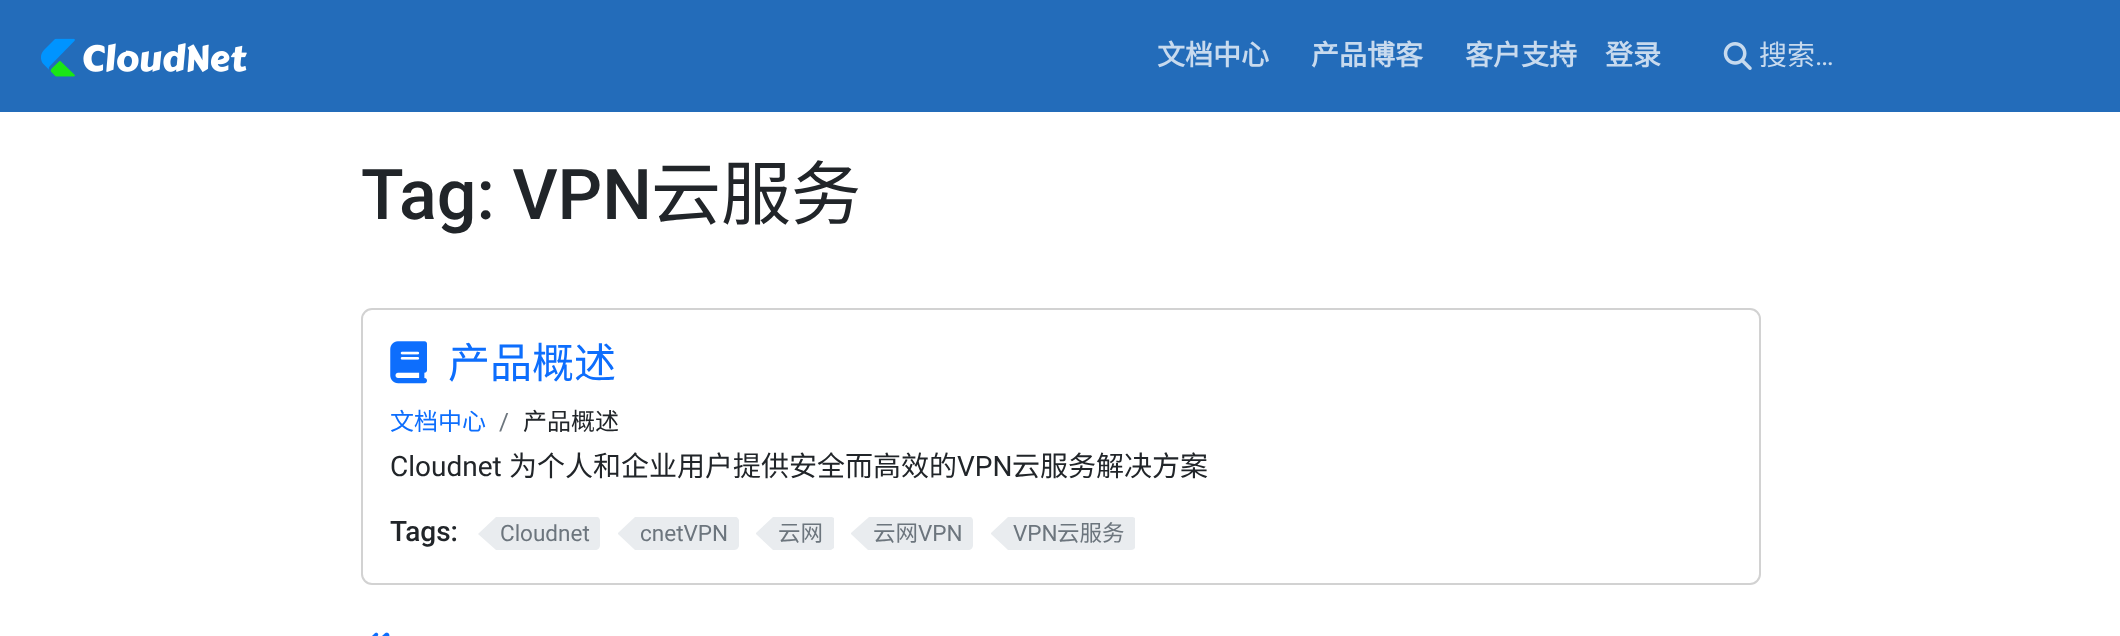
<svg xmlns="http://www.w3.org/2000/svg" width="2120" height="636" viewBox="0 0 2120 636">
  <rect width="100%" height="100%" fill="#ffffff"/>
  <rect x="0" y="0" width="2120" height="112" fill="#236cba"/>
  <image x="41" y="38" width="206" height="39" href="img1.png"/>
  <text x="1157" y="65" font-family="Noto Sans CJK SC" font-size="28" font-weight="bold" fill="#c8daee">文档中心</text>
  <text x="1311" y="65" font-family="Noto Sans CJK SC" font-size="28" font-weight="bold" fill="#c8daee">产品博客</text>
  <text x="1465" y="65" font-family="Noto Sans CJK SC" font-size="28" font-weight="bold" fill="#c8daee">客户支持</text>
  <text x="1605" y="65" font-family="Noto Sans CJK SC" font-size="28" font-weight="bold" fill="#c8daee">登录</text>
  <image x="1723" y="42" width="29" height="28" href="img2.png"/>
  <text x="1759" y="65" font-family="Noto Sans CJK SC" font-size="28" fill="#c8daee">搜索</text>
  <text x="1815" y="65" font-family="Roboto" font-size="28" fill="#c8daee">…</text>
  <text x="361" y="219" font-family="Roboto" font-size="70" font-weight="500" fill="#212529">Tag: VPN</text>
  <text x="651" y="219" font-family="Noto Sans CJK SC" font-size="70" fill="#212529">云服务</text>
  <rect x="362" y="309" width="1398" height="275" rx="10" fill="none" stroke="#d2d2d2" stroke-width="2"/>
  <image x="390" y="341" width="37" height="43" href="img3.png"/>
  <text x="448" y="378" font-family="Noto Sans CJK SC" font-size="42" fill="#0d6efd">产品概述</text>
  <text x="390" y="430" font-family="Noto Sans CJK SC" font-size="24" fill="#0d6efd">文档中心</text>
  <text x="499" y="430" font-family="Roboto" font-size="24" fill="#6c757d">/</text>
  <text x="523" y="430" font-family="Noto Sans CJK SC" font-size="24" fill="#212529">产品概述</text>
  <text x="390" y="476" font-family="Roboto" font-size="28" fill="#212529">Cloudnet</text>
  <text x="509" y="476" font-family="Noto Sans CJK SC" font-size="28" fill="#212529">为个人和企业用户提供安全而高效的</text>
  <text x="957" y="476" font-family="Roboto" font-size="28" fill="#212529">VPN</text>
  <text x="1012" y="476" font-family="Noto Sans CJK SC" font-size="28" fill="#212529">云服务解决方案</text>
  <text x="390" y="541" font-family="Roboto" font-size="28" font-weight="500" fill="#212529">Tags:</text>
  <path d="M478 534L496 517H597C599 517 600 519 600 521V545C600 548 598 550 595 550H496Z" fill="#e9ecef"/>
  <text x="500" y="541" font-family="Roboto" font-size="22.5" fill="#6c757d">Cloudnet</text>
  <path d="M618 534V533L635 517H736C737 517 738 518 739 520V546C738 549 736 550 734 550H635Z" fill="#e9ecef"/>
  <text x="640" y="541" font-family="Roboto" font-size="22.5" fill="#6c757d">cnetVPN</text>
  <path d="M756 534V533L773 517H832L834 518V548L831 550H773Z" fill="#e9ecef"/>
  <text x="778" y="541" font-family="Noto Sans CJK SC" font-size="22.5" fill="#6c757d">云网</text>
  <path d="M851 534V533L869 517H970C972 517 973 519 973 521V545C973 548 971 550 968 550H868Z" fill="#e9ecef"/>
  <text x="873" y="541" font-family="Noto Sans CJK SC" font-size="22.5" fill="#6c757d">云网</text>
  <text x="918" y="541" font-family="Roboto" font-size="22.5" fill="#6c757d">VPN</text>
  <path d="M991 534V533L1008 517H1133L1135 518V548C1134 549 1133 550 1131 550H1008Z" fill="#e9ecef"/>
  <text x="1013" y="541" font-family="Roboto" font-size="22.5" fill="#6c757d">VPN</text>
  <text x="1057" y="541" font-family="Noto Sans CJK SC" font-size="22.5" fill="#6c757d">云服务</text>
  <image x="372" y="632" width="18" height="4" href="img4.png"/>
</svg>
